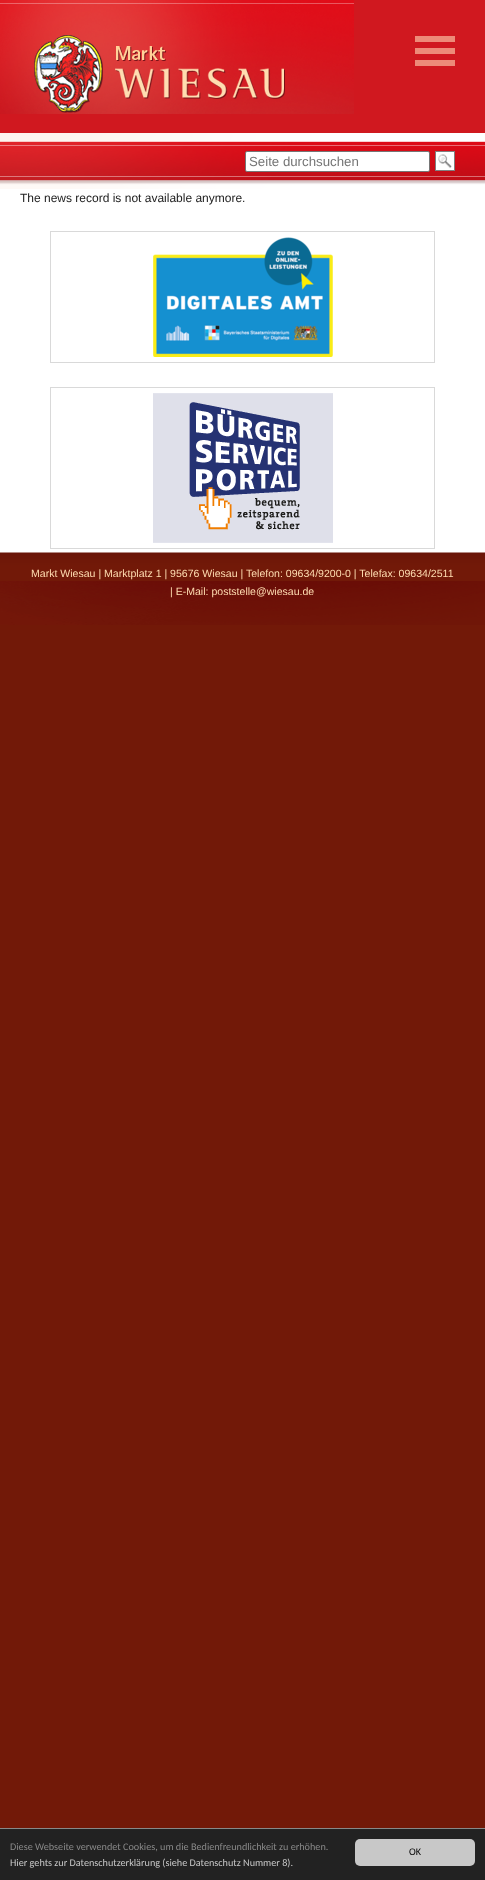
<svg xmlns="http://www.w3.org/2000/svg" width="485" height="1880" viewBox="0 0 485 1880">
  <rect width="100%" height="100%" fill="#721908"/>
  <image x="0" y="581" width="485" height="44" href="img1.png"/>
  <rect x="0" y="0" width="485" height="133" fill="#d0181f"/>
  <image x="0" y="0" width="354" height="114" href="img2.png"/>
  <rect x="415" y="60" width="40" height="6" fill="#ed8a78"/>
  <rect x="415" y="36" width="40" height="6" fill="#ed8a78"/>
  <rect x="415" y="48" width="40" height="6" fill="#ed8a78"/>
  <image x="0" y="133" width="485" height="56" href="img3.png"/>
  <rect x="245.5" y="151.5" width="184" height="20" rx="1.5" fill="#ffffff" stroke="#767676"/>
  <text x="249" y="166" font-family="Liberation Sans" font-size="13.25" fill="#757575">Seite durchsuchen</text>
  <image x="435" y="151" width="20" height="20" href="img4.png"/>
  <rect x="0" y="189" width="485" height="360" fill="#ffffff"/>
  <text x="20" y="202" font-family="Liberation Sans" font-size="12" fill="#222222">The news record is not available anymore.</text>
  <rect x="50.5" y="231.5" width="384" height="131" fill="none" stroke="#d9d9d9"/>
  <image x="153" y="237" width="180" height="120" href="img5.png"/>
  <rect x="50.5" y="387.5" width="384" height="161" fill="none" stroke="#d9d9d9"/>
  <image x="153" y="393" width="180" height="150" href="img6.png"/>
  <image x="0" y="549" width="485" height="32" href="img7.png"/>
  <text x="31" y="577" font-family="Liberation Sans" font-size="10.55" fill="#ffddb1">Markt Wiesau | Marktplatz 1 | 95676 Wiesau | Telefon: 09634/9200-0 | Telefax: 09634/2511</text>
  <text x="170" y="595" font-family="Liberation Sans" font-size="10.55" fill="#ffddb1">| E-Mail: poststelle@wiesau.de</text>
  <rect x="0" y="1829" width="485" height="51" fill="#222222"/>
  <rect x="0" y="1828" width="485" height="1" fill="#888888"/>
  <text x="10" y="1850" font-family="Carlito" font-size="10.2" fill="#888888">Diese Webseite verwendet Cookies, um die Bedienfreundlichkeit zu erhöhen.</text>
  <text x="10" y="1866" font-family="Carlito" font-size="10.2" fill="#c8c8c8">Hier gehts zur Datenschutzerklärung (siehe Datenschutz Nummer 8).</text>
  <rect x="355" y="1839" width="120" height="27" rx="5" fill="#c8c8c8"/>
  <text x="409" y="1855" font-family="Carlito" font-size="10.2" fill="#000000">OK</text>
</svg>
